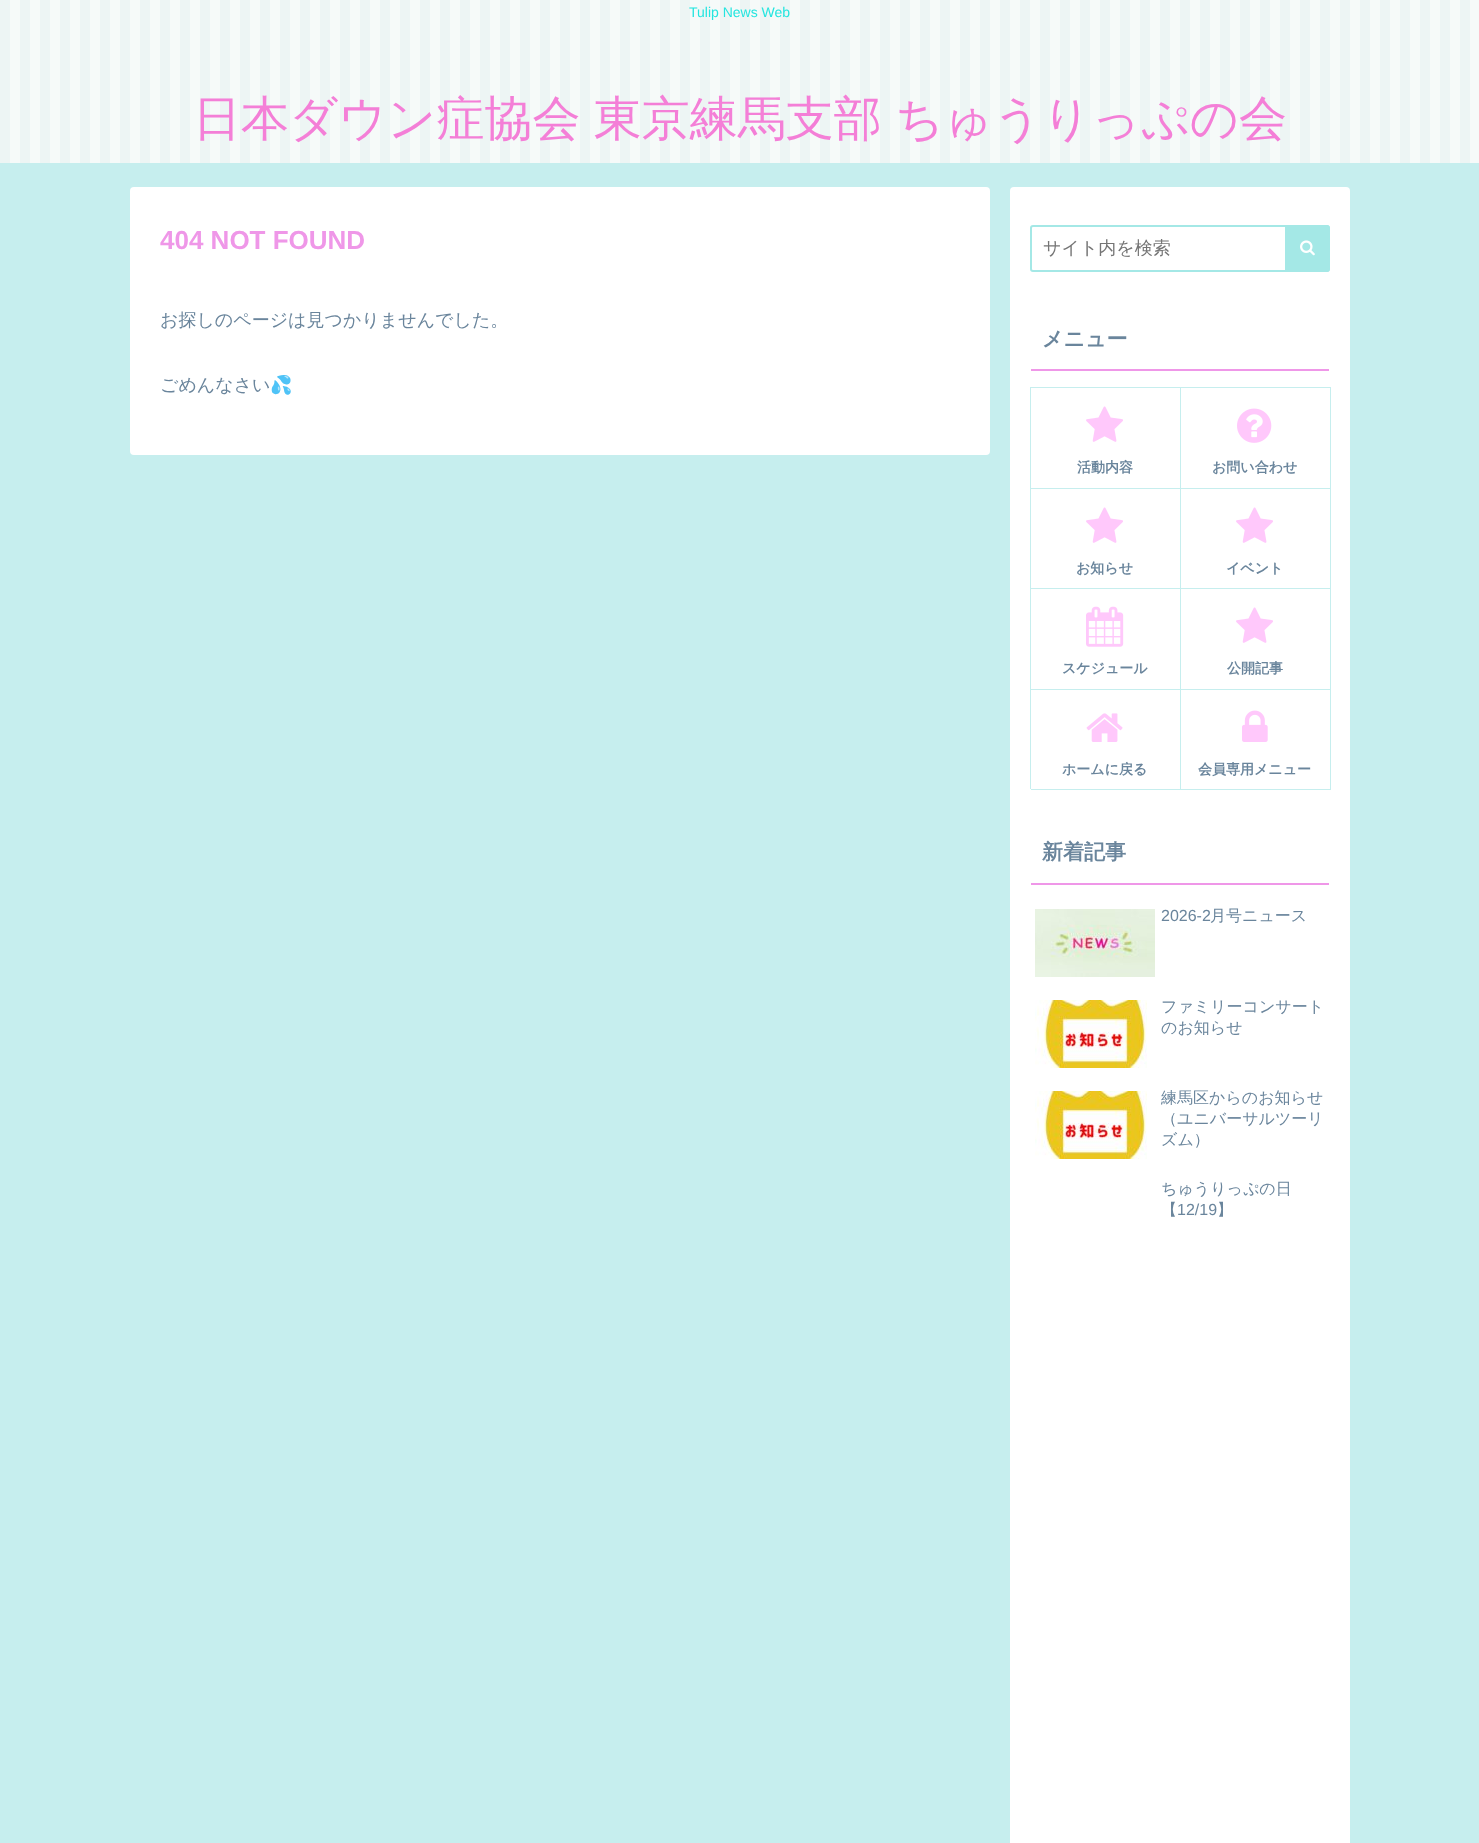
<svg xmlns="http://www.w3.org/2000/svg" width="1479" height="1843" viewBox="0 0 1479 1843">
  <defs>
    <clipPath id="clip1"><rect x="1030" y="387" width="150" height="101"/></clipPath>
    <clipPath id="clip2"><rect x="1180" y="387" width="150" height="101"/></clipPath>
    <clipPath id="clip3"><rect x="1030" y="488" width="150" height="100"/></clipPath>
    <clipPath id="clip4"><rect x="1180" y="488" width="150" height="100"/></clipPath>
    <clipPath id="clip5"><rect x="1030" y="588" width="150" height="101"/></clipPath>
    <clipPath id="clip6"><rect x="1180" y="588" width="150" height="101"/></clipPath>
    <clipPath id="clip7"><rect x="1030" y="689" width="150" height="100"/></clipPath>
    <clipPath id="clip8"><rect x="1180" y="689" width="150" height="100"/></clipPath>
  </defs>
  <rect width="100%" height="100%" fill="#c6eeee"/>
  <image x="0" y="0" width="1479" height="163" href="img1.png"/>
  <text x="689" y="17" font-family="Liberation Sans" font-size="14" fill="#24e5df">Tulip News Web</text>
  <text x="193" y="135" word-spacing="-1" font-family="WenQuanYi Zen Hei" font-size="48" font-weight="500" fill="#f47fd7">日本ダウン症協会 東京練馬支部</text>
  <text x="895" y="135" font-family="WenQuanYi Zen Hei" font-size="48" font-weight="500" fill="#f47fd7">ちゅうりっぷの会</text>
  <rect x="130" y="187" width="860" height="268" rx="4" fill="#ffffff"/>
  <text x="160" y="249" font-family="Liberation Sans" font-size="26" font-weight="bold" fill="#ef97e8">404 NOT FOUND</text>
  <text x="160" y="326" font-family="WenQuanYi Zen Hei" font-size="18" font-weight="500" fill="#6a859c">お探しのページは見つかりませんでした。</text>
  <text x="160" y="391" font-family="WenQuanYi Zen Hei" font-size="18" font-weight="500" fill="#6a859c">ごめんなさい</text>
  <text x="270" y="391" font-family="Noto Color Emoji" font-size="18" fill="#6a859c">💦</text>
  <rect x="1010" y="187" width="340" height="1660" rx="4" fill="#ffffff"/>
  <rect x="1031" y="226" width="298" height="45" rx="2" fill="none" stroke="#a4e8e6" stroke-width="2"/>
  <text x="1043" y="254" font-family="WenQuanYi Zen Hei" font-size="18" font-weight="500" fill="#757575">サイト内を検索</text>
  <path d="M1285 225H1327C1328.5 225 1330 226.5 1330 228V269C1330 270.5 1328.5 272 1327 272H1285Z" fill="#a4e8e6"/>
  <image x="1300" y="240" width="15" height="16" href="img2.png"/>
  <rect x="1031" y="369" width="298" height="2" fill="#ef97e8"/>
  <text x="1042" y="346" font-family="WenQuanYi Zen Hei" font-size="21" font-weight="bold" fill="#6a859c">メニュー</text>
  <g clip-path="url(#clip1)">
    <path d="M931 288H1279V587H931ZM1031 388H1181V489H1031Z" fill="#c6eeee" fill-rule="evenodd"/>
  </g>
  <image x="1086" y="406" width="37" height="36" href="img3.png"/>
  <text x="1077" y="472" font-family="WenQuanYi Zen Hei" font-size="14" font-weight="bold" fill="#6a859c">活動内容</text>
  <rect x="1330" y="387" width="1" height="1" fill="#c6eeee"/>
  <path d="M1181 488V489H1331V388H1330V488Z" fill="#c6eeee"/>
  <g clip-path="url(#clip2)">
    <path d="M1081 288H1429V587H1081ZM1181 388H1331V489H1181Z" fill="#c6eeee" fill-rule="evenodd"/>
  </g>
  <image x="1237" y="408" width="35" height="35" href="img4.png"/>
  <text x="1212" y="472" font-family="WenQuanYi Zen Hei" font-size="14" font-weight="bold" fill="#6a859c">お問い合わせ</text>
  <g clip-path="url(#clip3)">
    <path d="M931 389H1279V687H931ZM1031 489H1181V589H1031Z" fill="#c6eeee" fill-rule="evenodd"/>
  </g>
  <image x="1086" y="507" width="37" height="36" href="img3.png"/>
  <text x="1076" y="573" font-family="WenQuanYi Zen Hei" font-size="14" font-weight="bold" fill="#6a859c">お知らせ</text>
  <path d="M1181 588V589H1331V489H1330V588Z" fill="#c6eeee"/>
  <g clip-path="url(#clip4)">
    <path d="M1081 389H1429V687H1081ZM1181 489H1331V589H1181Z" fill="#c6eeee" fill-rule="evenodd"/>
  </g>
  <image x="1236" y="507" width="37" height="36" href="img3.png"/>
  <text x="1226" y="573" font-family="WenQuanYi Zen Hei" font-size="14" font-weight="bold" fill="#6a859c">イベント</text>
  <g clip-path="url(#clip5)">
    <path d="M931 489H1279V788H931ZM1031 589H1181V690H1031Z" fill="#c6eeee" fill-rule="evenodd"/>
  </g>
  <image x="1086" y="606" width="38" height="41" href="img5.png"/>
  <text x="1062" y="673" font-family="WenQuanYi Zen Hei" font-size="14" font-weight="bold" fill="#6a859c">スケジュール</text>
  <path d="M1181 689V690H1331V589H1330V689Z" fill="#c6eeee"/>
  <g clip-path="url(#clip6)">
    <path d="M1081 489H1429V788H1081ZM1181 589H1331V690H1181Z" fill="#c6eeee" fill-rule="evenodd"/>
  </g>
  <image x="1236" y="607" width="37" height="36" href="img3.png"/>
  <text x="1227" y="673" font-family="WenQuanYi Zen Hei" font-size="14" font-weight="bold" fill="#6a859c">公開記事</text>
  <path d="M1031 789V790H1181V690H1180V789Z" fill="#c6eeee"/>
  <g clip-path="url(#clip7)">
    <path d="M931 590H1279V888H931ZM1031 690H1181V790H1031Z" fill="#c6eeee" fill-rule="evenodd"/>
  </g>
  <image x="1086" y="713" width="37" height="29" href="img6.png"/>
  <text x="1062" y="774" font-family="WenQuanYi Zen Hei" font-size="14" font-weight="bold" fill="#6a859c">ホームに戻る</text>
  <path d="M1181 789V790H1331V690H1330V789Z" fill="#c6eeee"/>
  <g clip-path="url(#clip8)">
    <path d="M1081 590H1429V888H1081ZM1181 690H1331V790H1181Z" fill="#c6eeee" fill-rule="evenodd"/>
  </g>
  <image x="1242" y="710" width="26" height="32" href="img7.png"/>
  <text x="1198" y="774" font-family="WenQuanYi Zen Hei" font-size="14" font-weight="bold" fill="#6a859c">会員専用メニュー</text>
  <rect x="1031" y="883" width="298" height="2" fill="#ef97e8"/>
  <text x="1042" y="859" font-family="WenQuanYi Zen Hei" font-size="21" font-weight="bold" fill="#6a859c">新着記事</text>
  <image x="1035" y="909" width="120" height="68" href="img8.png"/>
  <text x="1161" y="921" font-family="Liberation Sans" font-size="16" fill="#6a859c">2026-2</text>
  <text x="1210" y="921" font-family="WenQuanYi Zen Hei" font-size="16" font-weight="500" fill="#6a859c">月号ニュース</text>
  <image x="1035" y="1000" width="112" height="68" href="img9.png"/>
  <text x="1161" y="1012" font-family="WenQuanYi Zen Hei" font-size="16" font-weight="500" fill="#6a859c">ファミリーコンサート</text>
  <text x="1161" y="1033" font-family="WenQuanYi Zen Hei" font-size="16" font-weight="500" fill="#6a859c">のお知らせ</text>
  <image x="1035" y="1091" width="112" height="68" href="img9.png"/>
  <text x="1161" y="1103" font-family="WenQuanYi Zen Hei" font-size="16" font-weight="500" fill="#6a859c">練馬区からのお知らせ</text>
  <text x="1161" y="1124" font-family="WenQuanYi Zen Hei" font-size="16" font-weight="500" fill="#6a859c">（ユニバーサルツーリ</text>
  <text x="1161" y="1145" font-family="WenQuanYi Zen Hei" font-size="16" font-weight="500" fill="#6a859c">ズム）</text>
  <text x="1161" y="1194" font-family="WenQuanYi Zen Hei" font-size="16" font-weight="500" fill="#6a859c">ちゅうりっぷの日</text>
  <text x="1161" y="1215" font-family="WenQuanYi Zen Hei" font-size="16" font-weight="500" fill="#6a859c">【</text>
  <text x="1177" y="1215" font-family="Liberation Sans" font-size="16" fill="#6a859c">12/19</text>
  <text x="1217" y="1215" font-family="WenQuanYi Zen Hei" font-size="16" font-weight="500" fill="#6a859c">】</text>
</svg>
